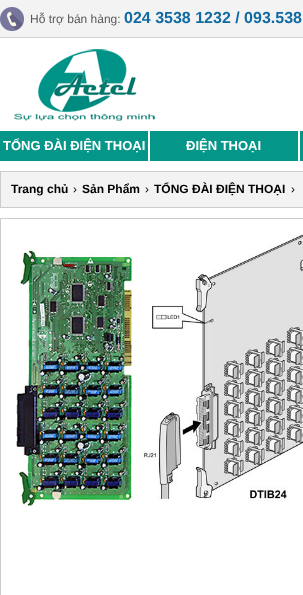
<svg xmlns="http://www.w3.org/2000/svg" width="303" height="595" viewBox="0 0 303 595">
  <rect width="100%" height="100%" fill="#ffffff"/>
  <rect x="0" y="0" width="303" height="37" fill="#f3f3f3"/>
  <rect x="0" y="37" width="303" height="1" fill="#d1d1d1"/>
  <image x="0" y="7" width="24" height="24" href="img1.png"/>
  <text x="30" y="23" font-family="Liberation Sans" font-size="12" fill="#58595b">Hỗ trợ bán hàng:</text>
  <text x="124" y="23" font-family="Liberation Sans" font-size="16" font-weight="bold" fill="#116ba2">024 3538 1232 / 093.538</text>
  <image x="14" y="49" width="141" height="72" href="img2.png"/>
  <rect x="0" y="131" width="148" height="30" fill="#049689"/>
  <text x="3" y="150" font-family="Liberation Sans" font-size="13" font-weight="bold" fill="#ffffff">TỔNG ĐÀI ĐIỆN THOẠI</text>
  <rect x="150" y="131" width="148" height="30" fill="#049689"/>
  <text x="186" y="150" font-family="Liberation Sans" font-size="13" font-weight="bold" fill="#ffffff">ĐIỆN THOẠI</text>
  <rect x="300" y="131" width="3" height="30" fill="#049689"/>
  <rect x="0.5" y="171.5" width="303" height="36" fill="#f3f3f3" stroke="#cccccc"/>
  <text x="11" y="193" font-family="Liberation Sans" font-size="12" font-weight="bold" fill="#000000">Trang chủ</text>
  <text x="73" y="193" font-family="Liberation Sans" font-size="12" fill="#000000">›</text>
  <text x="82" y="193" font-family="Liberation Sans" font-size="12" font-weight="bold" fill="#000000">Sản Phẩm</text>
  <text x="145" y="193" font-family="Liberation Sans" font-size="12" fill="#000000">›</text>
  <text x="154" y="193" font-family="Liberation Sans" font-size="12" font-weight="bold" fill="#000000">TỔNG ĐÀI ĐIỆN THOẠI</text>
  <text x="291" y="193" font-family="Liberation Sans" font-size="12" fill="#000000">›</text>
  <rect x="0.5" y="218.5" width="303" height="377" fill="none" stroke="#cccccc"/>
  <image x="16" y="234" width="287" height="272" href="img3.png"/>
</svg>
